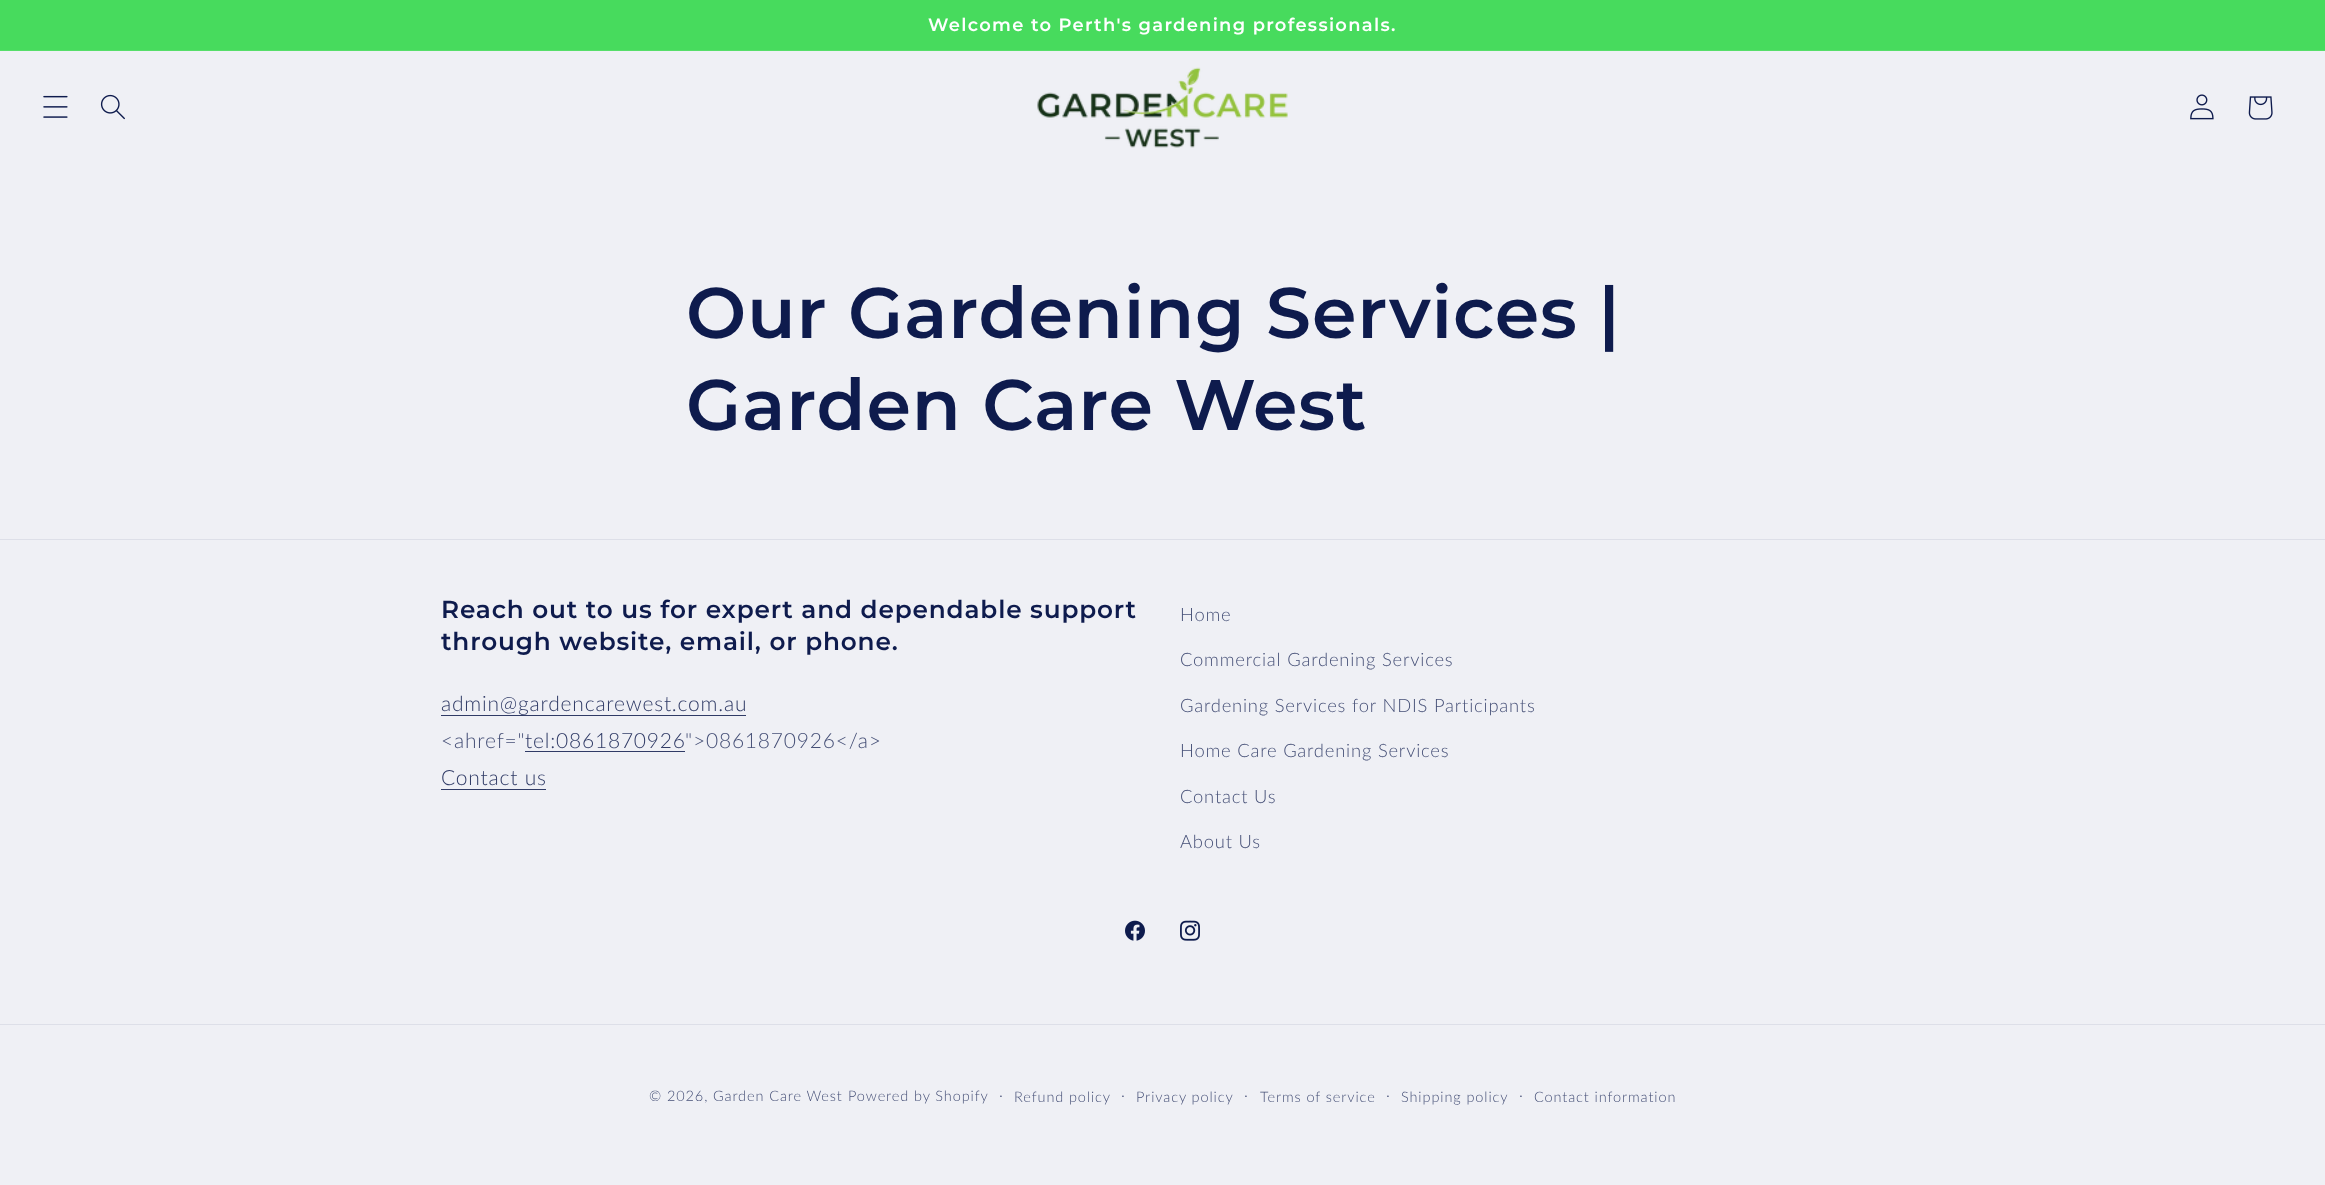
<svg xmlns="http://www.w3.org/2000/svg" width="2325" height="1185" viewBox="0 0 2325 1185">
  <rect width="100%" height="100%" fill="#eff0f5"/>
  <rect x="0" y="0" width="2325" height="50" fill="#47db5d"/>
  <rect x="0" y="50" width="2325" height="1" fill="#56de6a"/>
  <text x="928" y="31" font-family="Montserrat" font-size="17.9" font-weight="600" letter-spacing="1.3" fill="#ffffff">Welcome to Perth's gardening professionals.</text>
  <image x="43" y="95" width="25" height="23" href="img1.png"/>
  <image x="100" y="94" width="25" height="26" href="img2.png"/>
  <image x="1037" y="67" width="251" height="81" href="img3.png"/>
  <image x="2190" y="94" width="24" height="26" href="img4.png"/>
  <image x="2248" y="96" width="25" height="24" href="img5.png"/>
  <text x="686" y="338" font-family="Montserrat" font-size="71.5" font-weight="600" letter-spacing="0.85" fill="#0e1b4d">Our Gardening Services |</text>
  <text x="686" y="430" font-family="Montserrat" font-size="71.5" font-weight="600" letter-spacing="0.85" fill="#0e1b4d">Garden Care West</text>
  <rect x="0" y="539" width="2325" height="1" fill="#dddfe8"/>
  <text x="441" y="618" font-family="Montserrat" font-size="24.75" font-weight="600" letter-spacing="0.85" fill="#0e1b4d">Reach out to us for expert and dependable support</text>
  <text x="441" y="650" font-family="Montserrat" font-size="24.75" font-weight="600" letter-spacing="0.85" fill="#0e1b4d">through website, email, or phone.</text>
  <text x="441" y="711" font-family="Lato" font-size="21" font-weight="300" letter-spacing="0.8" fill="#303b66">admin@gardencarewest.com.au</text>
  <rect x="441" y="715" width="305" height="1" fill="#303b66"/>
  <text x="441" y="748" font-family="Lato" font-size="21" font-weight="300" letter-spacing="0.8" fill="#465077">&lt;ahref="</text>
  <text x="525" y="748" font-family="Lato" font-size="21" font-weight="300" letter-spacing="0.8" fill="#303b66">tel:0861870926</text>
  <rect x="525" y="751" width="160" height="1" fill="#303b66"/>
  <text x="685" y="748" font-family="Lato" font-size="21" font-weight="300" letter-spacing="0.8" fill="#465077">"&gt;0861870926&lt;/a&gt;</text>
  <text x="441" y="785" font-family="Lato" font-size="21" font-weight="300" letter-spacing="0.8" fill="#303b66">Contact us</text>
  <rect x="441" y="789" width="105" height="1" fill="#303b66"/>
  <text x="1180" y="621" font-family="Lato" font-size="18.4" font-weight="300" letter-spacing="0.8" fill="#465077">Home</text>
  <text x="1180" y="666" font-family="Lato" font-size="18.4" font-weight="300" letter-spacing="0.8" fill="#465077">Commercial Gardening Services</text>
  <text x="1180" y="712" font-family="Lato" font-size="18.4" font-weight="300" letter-spacing="0.8" fill="#465077">Gardening Services for NDIS Participants</text>
  <text x="1180" y="757" font-family="Lato" font-size="18.4" font-weight="300" letter-spacing="0.8" fill="#465077">Home Care Gardening Services</text>
  <text x="1180" y="803" font-family="Lato" font-size="18.4" font-weight="300" letter-spacing="0.8" fill="#465077">Contact Us</text>
  <text x="1180" y="848" font-family="Lato" font-size="18.4" font-weight="300" letter-spacing="0.8" fill="#465077">About Us</text>
  <image x="1125" y="920" width="20" height="21" href="img6.png"/>
  <image x="1180" y="920" width="20" height="21" href="img7.png"/>
  <rect x="0" y="1024" width="2325" height="1" fill="#dddfe8"/>
  <text x="649" y="1101" font-family="Lato" font-size="14.5" font-weight="300" letter-spacing="0.9" fill="#465077">© 2026, Garden Care West</text>
  <text x="848" y="1101" font-family="Lato" font-size="14.5" font-weight="300" letter-spacing="0.9" fill="#465077">Powered by Shopify</text>
  <text x="999" y="1101" font-family="Lato" font-size="16" font-weight="300" letter-spacing="0.9" fill="#465077">·</text>
  <text x="1014" y="1102" font-family="Lato" font-size="14.5" font-weight="300" letter-spacing="0.9" fill="#465077">Refund policy</text>
  <text x="1121" y="1101" font-family="Lato" font-size="16" font-weight="300" letter-spacing="0.9" fill="#465077">·</text>
  <text x="1136" y="1102" font-family="Lato" font-size="14.5" font-weight="300" letter-spacing="0.9" fill="#465077">Privacy policy</text>
  <text x="1244" y="1101" font-family="Lato" font-size="16" font-weight="300" letter-spacing="0.9" fill="#465077">·</text>
  <text x="1260" y="1102" font-family="Lato" font-size="14.5" font-weight="300" letter-spacing="0.9" fill="#465077">Terms of service</text>
  <text x="1386" y="1101" font-family="Lato" font-size="16" font-weight="300" letter-spacing="0.9" fill="#465077">·</text>
  <text x="1401" y="1102" font-family="Lato" font-size="14.5" font-weight="300" letter-spacing="0.9" fill="#465077">Shipping policy</text>
  <text x="1519" y="1101" font-family="Lato" font-size="16" font-weight="300" letter-spacing="0.9" fill="#465077">·</text>
  <text x="1534" y="1102" font-family="Lato" font-size="14.5" font-weight="300" letter-spacing="0.9" fill="#465077">Contact information</text>
</svg>
